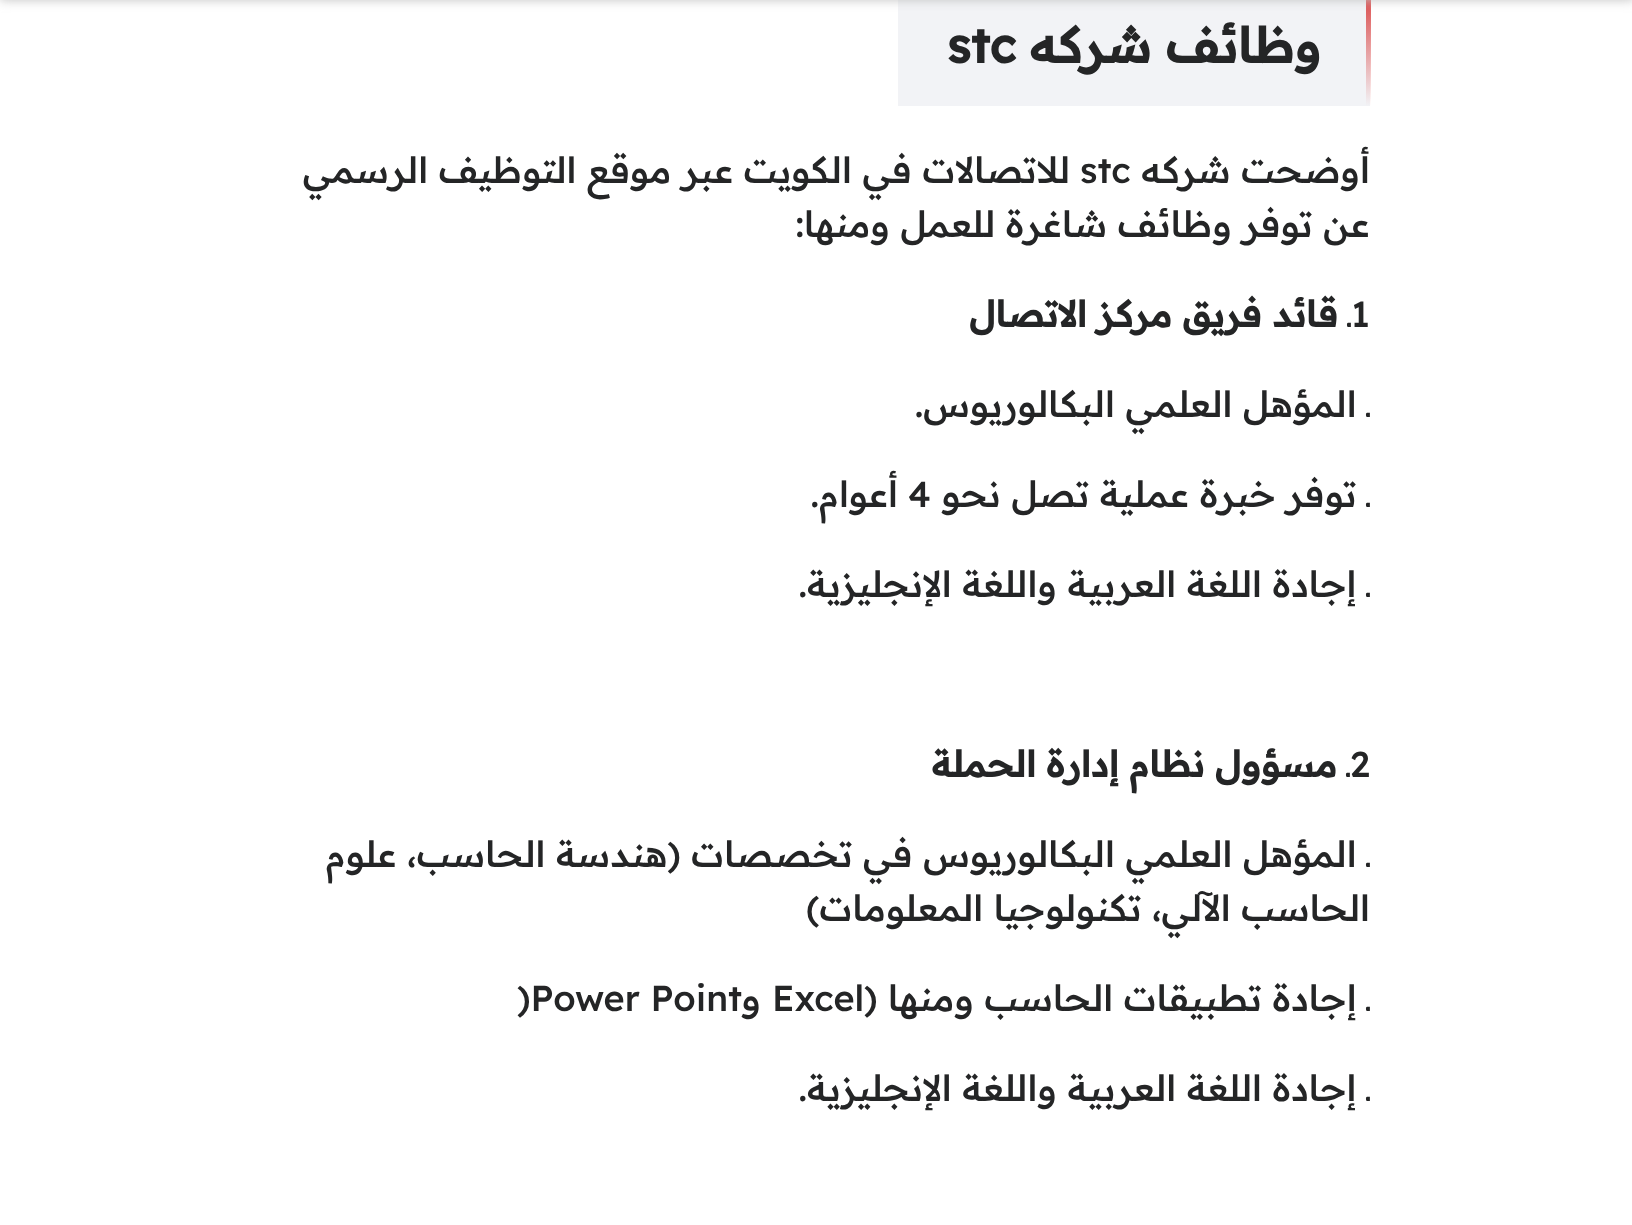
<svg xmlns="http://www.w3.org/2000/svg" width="1632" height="1225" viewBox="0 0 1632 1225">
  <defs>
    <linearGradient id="g1" gradientUnits="userSpaceOnUse" x1="1368" y1="-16" x2="1368" y2="106"><stop offset="0" stop-color="#d73737"/><stop offset="1" stop-color="#d73737" stop-opacity="0"/></linearGradient>
    <filter id="blur1" x="-50%" y="-200%" width="200%" height="500%"><feGaussianBlur stdDeviation="5.5"/></filter>
  </defs>
  <rect width="100%" height="100%" fill="#ffffff"/>
  <rect x="898" y="0" width="472" height="106" fill="#f2f3f6"/>
  <rect x="1366" y="0" width="5" height="106" fill="url(#g1)"/>
  <rect x="0" y="-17" width="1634" height="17" fill="#c3c3c3" filter="url(#blur1)"/>
  <text x="1321" y="63" font-family="Readex Pro" font-size="49" font-weight="bold" direction="rtl" fill="#242526">وظائف شركه</text>
  <text x="947" y="63" font-family="Readex Pro" font-size="49" font-weight="bold" fill="#242526">stc</text>
  <text x="1370" y="183" font-family="Readex Pro" font-size="36" font-weight="500" direction="rtl" fill="#242526">أوضحت شركه</text>
  <text x="1080" y="183" font-family="Readex Pro" font-size="36" font-weight="500" fill="#242526">stc</text>
  <text x="1070" y="183" font-family="Readex Pro" font-size="36" font-weight="500" direction="rtl" fill="#242526">للاتصالات في الكويت عبر موقع التوظيف الرسمي</text>
  <text x="1370" y="237" font-family="Readex Pro" font-size="36" font-weight="500" direction="rtl" fill="#242526">عن توفر وظائف شاغرة للعمل ومنها:</text>
  <text x="1351" y="327" font-family="Readex Pro" font-size="36" font-weight="500" fill="#242526">1</text>
  <text x="1351" y="327" font-family="Readex Pro" font-size="36" font-weight="500" direction="rtl" fill="#242526">ـ</text>
  <text x="1338" y="327" font-family="Readex Pro" font-size="36" font-weight="bold" direction="rtl" fill="#242526">قائد فريق مركز الاتصال</text>
  <text x="1370" y="417" font-family="Readex Pro" font-size="36" font-weight="500" direction="rtl" fill="#242526">ـ المؤهل العلمي البكالوريوس.</text>
  <text x="1370" y="507" font-family="Readex Pro" font-size="36" font-weight="500" direction="rtl" fill="#242526">ـ توفر خبرة عملية تصل نحو</text>
  <text x="908" y="507" font-family="Readex Pro" font-size="36" font-weight="500" fill="#242526">4</text>
  <text x="898" y="507" font-family="Readex Pro" font-size="36" font-weight="500" direction="rtl" fill="#242526">أعوام.</text>
  <text x="1370" y="597" font-family="Readex Pro" font-size="36" font-weight="500" direction="rtl" fill="#242526">ـ إجادة اللغة العربية واللغة الإنجليزية.</text>
  <text x="1350" y="777" font-family="Readex Pro" font-size="36" font-weight="500" fill="#242526">2</text>
  <text x="1350" y="777" font-family="Readex Pro" font-size="36" font-weight="500" direction="rtl" fill="#242526">ـ</text>
  <text x="1337" y="777" font-family="Readex Pro" font-size="36" font-weight="bold" direction="rtl" fill="#242526">مسؤول نظام إدارة الحملة</text>
  <text x="1370" y="867" font-family="Readex Pro" font-size="36" font-weight="500" direction="rtl" fill="#242526">ـ المؤهل العلمي البكالوريوس في تخصصات (هندسة الحاسب، علوم</text>
  <text x="1370" y="921" font-family="Readex Pro" font-size="36" font-weight="500" direction="rtl" fill="#242526">الحاسب الآلي، تكنولوجيا المعلومات)</text>
  <text x="1370" y="1011" font-family="Readex Pro" font-size="36" font-weight="500" direction="rtl" fill="#242526">ـ إجادة تطبيقات الحاسب ومنها (</text>
  <text x="772" y="1011" font-family="Readex Pro" font-size="36" font-weight="500" fill="#242526">Excel</text>
  <text x="761" y="1011" font-family="Readex Pro" font-size="36" font-weight="500" direction="rtl" fill="#242526">و</text>
  <text x="517" y="1011" font-family="Readex Pro" font-size="36" font-weight="500" fill="#242526">)Power Point</text>
  <text x="1370" y="1101" font-family="Readex Pro" font-size="36" font-weight="500" direction="rtl" fill="#242526">ـ إجادة اللغة العربية واللغة الإنجليزية.</text>
</svg>
